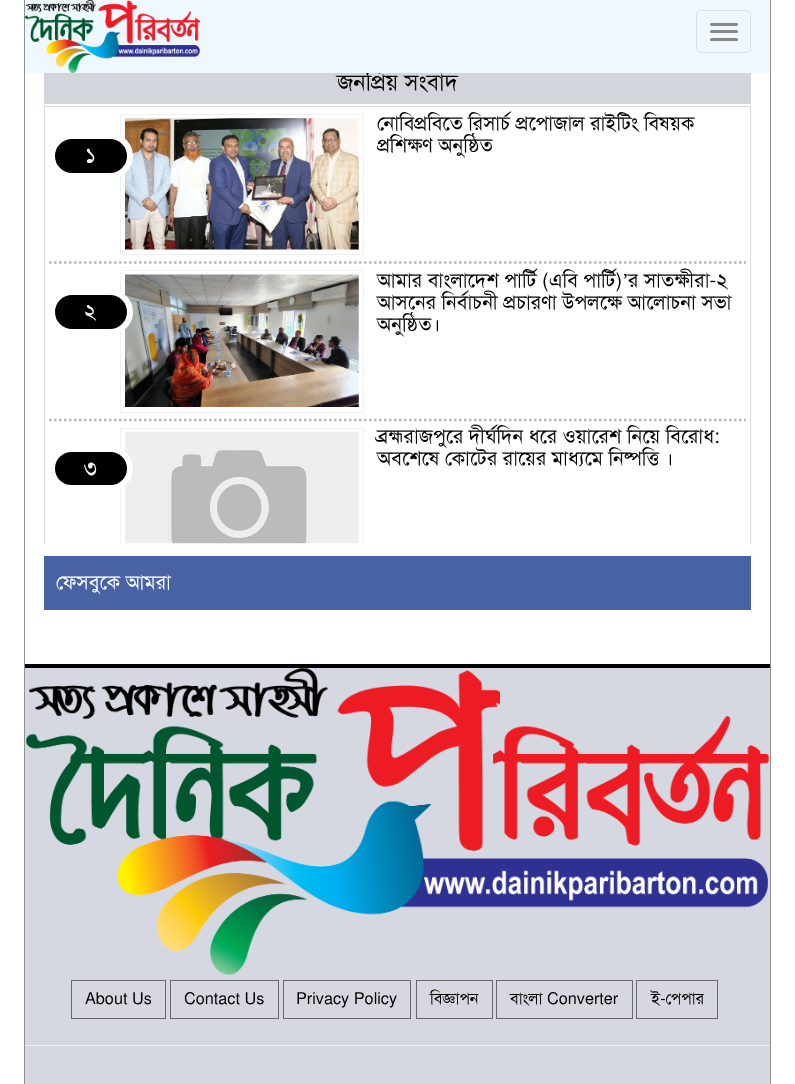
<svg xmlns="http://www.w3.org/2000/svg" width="795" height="1084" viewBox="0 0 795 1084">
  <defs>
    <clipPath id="clip1"><rect x="44" y="106" width="707" height="438"/></clipPath>
    <clipPath id="clip2"><rect x="49" y="421" width="697" height="123"/></clipPath>
  </defs>
  <rect width="100%" height="100%" fill="#ffffff"/>
  <rect x="24.5" y="-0.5" width="746" height="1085" fill="none" stroke="#909090"/>
  <rect x="44" y="73" width="707" height="31" fill="#d2d5db"/>
  <text x="337" y="90" font-family="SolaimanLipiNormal" font-size="23" fill="#000000">জনপ্রিয় সংবাদ</text>
  <rect x="25" y="0" width="745" height="73" fill="#f0f8ff"/>
  <image x="25" y="0" width="175" height="73" href="img1.png"/>
  <rect x="696.5" y="10.5" width="54" height="42" rx="4.5" fill="none" stroke="#dddddd"/>
  <rect x="710" y="23" width="28" height="3" rx="1.5" fill="#888888"/>
  <rect x="710" y="30" width="28" height="3" rx="1.5" fill="#888888"/>
  <rect x="710" y="38" width="28" height="3" rx="1.5" fill="#888888"/>
  <rect x="25" y="668" width="745" height="416" fill="#d6d8e1"/>
  <rect x="25" y="664" width="745" height="4" fill="#000000"/>
  <g clip-path="url(#clip1)">
    <rect x="44.5" y="106.5" width="706" height="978" fill="none" stroke="#d8d9dc"/>
  </g>
  <path d="M49 262.5H746" fill="none" stroke="#bbb6b6" stroke-width="2.5" stroke-dasharray="2.5 2.5"/>
  <rect x="120.5" y="114.5" width="243" height="140" fill="none" stroke="#f0f0f0"/>
  <image x="125" y="118" width="234" height="132" href="img2.png"/>
  <rect x="52" y="136" width="78" height="40" rx="20" fill="#000000" stroke="#ffffff" stroke-width="6"/>
  <text x="85" y="162" font-family="SolaimanLipiNormal" font-size="21" fill="#ffffff">১</text>
  <text x="377" y="130" font-family="SolaimanLipiNormal" font-size="20" fill="#000000">নোবিপ্রবিতে রিসার্চ প্রপোজাল রাইটিং বিষয়ক</text>
  <text x="377" y="152" font-family="SolaimanLipiNormal" font-size="20" fill="#000000">প্রশিক্ষণ অনুষ্ঠিত</text>
  <path d="M49 420H746" fill="none" stroke="#bbb6b6" stroke-width="2.5" stroke-dasharray="2.5 2.5"/>
  <rect x="120.5" y="270.5" width="243" height="142" fill="none" stroke="#f0f0f0"/>
  <image x="125" y="274" width="234" height="133" href="img3.png"/>
  <rect x="52" y="292" width="78" height="40" rx="20" fill="#000000" stroke="#ffffff" stroke-width="6"/>
  <text x="84" y="318" font-family="SolaimanLipiNormal" font-size="21" fill="#ffffff">২</text>
  <text x="377" y="287" font-family="SolaimanLipiNormal" font-size="20" fill="#000000">আমার বাংলাদেশ পার্টি (এবি পার্টি)</text>
  <text x="622" y="287" font-family="Liberation Serif" font-size="20" fill="#000000">’</text>
  <text x="628" y="287" font-family="SolaimanLipiNormal" font-size="20" fill="#000000">র সাতক্ষীরা-২</text>
  <text x="377" y="309" font-family="SolaimanLipiNormal" font-size="20" fill="#000000">আসনের নির্বাচনী প্রচারণা উপলক্ষে আলোচনা সভা</text>
  <text x="377" y="331" font-family="SolaimanLipiNormal" font-size="20" fill="#000000">অনুষ্ঠিত।</text>
  <g clip-path="url(#clip2)">
    <rect x="120.5" y="428.5" width="243" height="140" fill="none" stroke="#f0f0f0"/>
  </g>
  <image x="125" y="432" width="234" height="112" href="img4.png"/>
  <rect x="52" y="449" width="78" height="39" rx="19.5" fill="#000000" stroke="#ffffff" stroke-width="6"/>
  <text x="84" y="475" font-family="SolaimanLipiNormal" font-size="21" fill="#ffffff">৩</text>
  <text x="377" y="443" font-family="SolaimanLipiNormal" font-size="20" fill="#000000">ব্রহ্মরাজপুরে দীর্ঘদিন ধরে ওয়ারেশ নিয়ে বিরোধ:</text>
  <text x="377" y="465" font-family="SolaimanLipiNormal" font-size="20" fill="#000000">অবশেষে কোটের রায়ের মাধ্যমে নিষ্পত্তি ।</text>
  <rect x="44" y="556" width="707" height="54" fill="#4862a3"/>
  <text x="56" y="589" font-family="SolaimanLipiNormal" font-size="20" fill="#ffffff">ফেসবুকে আমরা</text>
  <rect x="25" y="1045" width="745" height="1" fill="#f0f0f0"/>
  <image x="26" y="668" width="743" height="307" href="img5.png"/>
  <rect x="71.5" y="980.5" width="94" height="38" fill="none" stroke="#696969"/>
  <text x="85" y="1004" font-family="SolaimanLipiNormal" font-size="16.25" fill="#000000">About Us</text>
  <rect x="170.5" y="980.5" width="108" height="38" fill="none" stroke="#696969"/>
  <text x="184" y="1004" font-family="SolaimanLipiNormal" font-size="16.25" fill="#000000">Contact Us</text>
  <rect x="283.5" y="980.5" width="127" height="38" fill="none" stroke="#696969"/>
  <text x="296" y="1004" font-family="SolaimanLipiNormal" font-size="16.25" fill="#000000">Privacy Policy</text>
  <rect x="416.5" y="980.5" width="76" height="38" fill="none" stroke="#696969"/>
  <text x="430" y="1004" font-family="SolaimanLipiNormal" font-size="16.25" fill="#000000">বিজ্ঞাপন</text>
  <rect x="496.5" y="980.5" width="136" height="38" fill="none" stroke="#696969"/>
  <text x="510" y="1004" font-family="SolaimanLipiNormal" font-size="16.25" fill="#000000">বাংলা Converter</text>
  <rect x="636.5" y="980.5" width="81" height="38" fill="none" stroke="#696969"/>
  <text x="651" y="1004" font-family="SolaimanLipiNormal" font-size="16.25" fill="#000000">ই-পেপার</text>
</svg>
